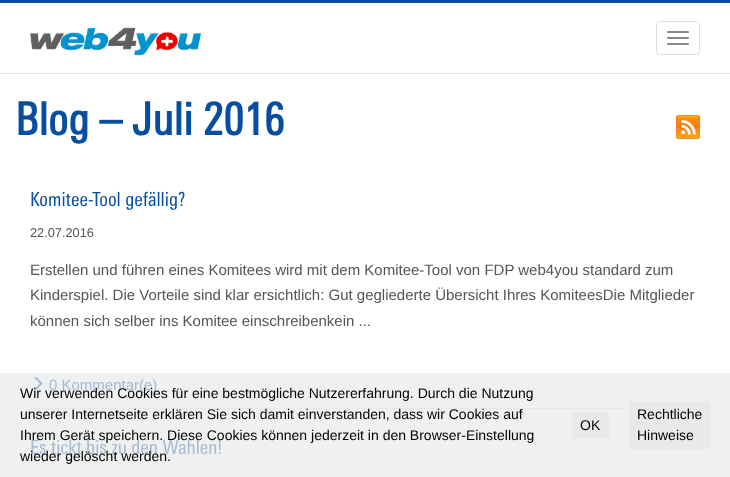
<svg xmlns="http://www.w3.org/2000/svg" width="730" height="477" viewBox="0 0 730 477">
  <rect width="100%" height="100%" fill="#ffffff"/>
  <rect x="0" y="373" width="730" height="104" fill="#f0f0f0"/>
  <rect x="0" y="0" width="730" height="3" fill="#074ea1"/>
  <rect x="0" y="73" width="730" height="1" fill="#e7e7e7"/>
  <image x="30" y="27" width="171" height="29" href="img1.png"/>
  <rect x="656.5" y="21.5" width="43" height="33" rx="3.5" fill="none" stroke="#dddddd"/>
  <rect x="667" y="31" width="22" height="2" rx="1" fill="#888888"/>
  <rect x="667" y="37" width="22" height="2" rx="1" fill="#888888"/>
  <rect x="667" y="43" width="22" height="2" rx="1" fill="#888888"/>
  <text x="15" y="135" font-family="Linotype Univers" font-size="45" font-weight="bold" fill="#074ea1">Blog – Juli 2016</text>
  <image x="676" y="115" width="24" height="24" href="img2.png"/>
  <rect x="30" y="408" width="599" height="1" fill="#e8e8e8"/>
  <text x="30" y="206" font-family="Linotype Univers" font-size="19.5" fill="#074ea1">Komitee-Tool gefällig?</text>
  <text x="30" y="237" font-family="Liberation Sans" font-size="12.75" fill="#555555">22.07.2016</text>
  <text x="30" y="275" font-family="Liberation Sans" font-size="15" fill="#555555">Erstellen und führen eines Komitees wird mit dem Komitee-Tool von FDP web4you standard zum</text>
  <text x="30" y="300" font-family="Liberation Sans" font-size="15" fill="#555555">Kinderspiel. Die Vorteile sind klar ersichtlich: Gut gegliederte Übersicht Ihres KomiteesDie Mitglieder</text>
  <text x="30" y="326" font-family="Liberation Sans" font-size="15" fill="#555555">können sich selber ins Komitee einschreibenkein ...</text>
  <image x="34" y="377" width="9" height="13" href="img3.png"/>
  <text x="49" y="390" font-family="Liberation Sans" font-size="15" fill="#a5bbd3">0 Kommentar(e)</text>
  <text x="30" y="454" font-family="Linotype Univers" font-size="19.5" fill="#a5bbd3">Es tickt bis zu den Wahlen!</text>
  <text x="20" y="398" font-family="Liberation Sans" font-size="14" fill="#000000">Wir verwenden Cookies für eine bestmögliche Nutzererfahrung. Durch die Nutzung</text>
  <text x="20" y="419" font-family="Liberation Sans" font-size="14" fill="#000000">unserer Internetseite erklären Sie sich damit einverstanden, dass wir Cookies auf</text>
  <text x="20" y="440" font-family="Liberation Sans" font-size="14" fill="#000000">Ihrem Gerät speichern. Diese Cookies können jederzeit in den Browser-Einstellung</text>
  <text x="20" y="461" font-family="Liberation Sans" font-size="14" fill="#000000">wieder gelöscht werden.</text>
  <rect x="572" y="412" width="37" height="27" rx="2" fill="#e9e9e9"/>
  <text x="580" y="430" font-family="Liberation Sans" font-size="14" fill="#000000">OK</text>
  <rect x="629" y="401" width="81" height="48" rx="2" fill="#e9e9e9"/>
  <text x="637" y="419" font-family="Liberation Sans" font-size="14" fill="#000000">Rechtliche</text>
  <text x="637" y="440" font-family="Liberation Sans" font-size="14" fill="#000000">Hinweise</text>
</svg>
